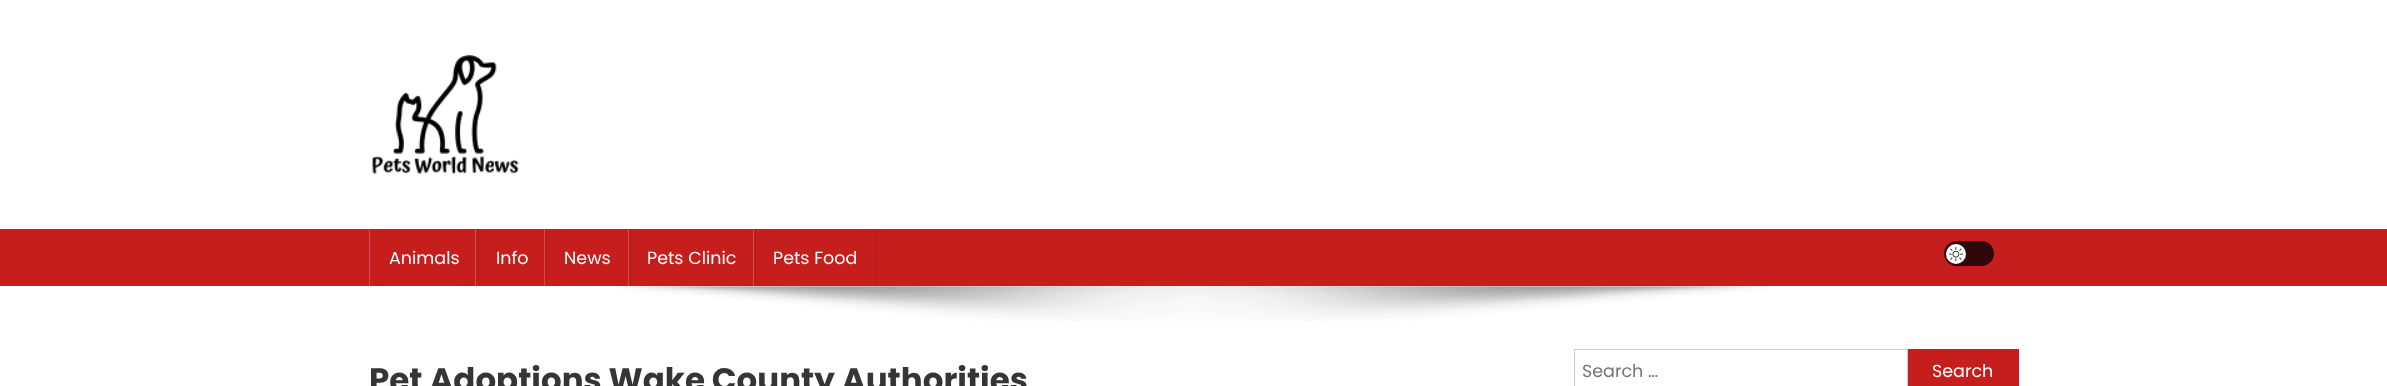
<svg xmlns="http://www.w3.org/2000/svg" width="2387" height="386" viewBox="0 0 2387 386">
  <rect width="100%" height="100%" fill="#ffffff"/>
  <image x="372" y="54" width="147" height="120" href="img1.png"/>
  <rect x="0" y="229" width="2387" height="57" fill="#c61d1d"/>
  <rect x="478" y="229" width="1" height="57" fill="#b61b1b"/>
  <rect x="369" y="229" width="1" height="57" fill="#d14a4a"/>
  <text x="389" y="264" font-family="Poppins" font-size="17.5" fill="#ffffff">Animals</text>
  <rect x="546" y="229" width="1" height="57" fill="#b61b1b"/>
  <rect x="475" y="229" width="1" height="57" fill="#d14a4a"/>
  <text x="496" y="264" font-family="Poppins" font-size="17.5" fill="#ffffff">Info</text>
  <rect x="630" y="229" width="1" height="57" fill="#b61b1b"/>
  <rect x="544" y="229" width="1" height="57" fill="#d14a4a"/>
  <text x="564" y="264" font-family="Poppins" font-size="17.5" fill="#ffffff">News</text>
  <rect x="755" y="229" width="1" height="57" fill="#b61b1b"/>
  <rect x="628" y="229" width="1" height="57" fill="#d14a4a"/>
  <text x="647" y="264" font-family="Poppins" font-size="17.5" fill="#ffffff">Pets Clinic</text>
  <rect x="876" y="229" width="1" height="57" fill="#b61b1b"/>
  <rect x="753" y="229" width="1" height="57" fill="#d14a4a"/>
  <text x="773" y="264" font-family="Poppins" font-size="17.5" fill="#ffffff">Pets Food</text>
  <rect x="1944" y="241" width="50" height="25" rx="12.5" fill="#320707"/>
  <circle cx="1956" cy="254" r="10" fill="#ffffff"/>
  <image x="1949" y="247" width="14" height="14" href="img2.png"/>
  <image x="619" y="286" width="1149" height="35" href="img3.png"/>
  <text x="369" y="391" font-family="Poppins" font-size="32.5" font-weight="bold" fill="#353535">Pet Adoptions Wake County Authorities</text>
  <rect x="1574.5" y="349.5" width="333" height="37" fill="none" stroke="#cccccc"/>
  <text x="1582" y="377" font-family="Poppins" font-size="17.5" fill="#757575">Search …</text>
  <rect x="1908" y="349" width="111" height="37" fill="#c61d1d"/>
  <text x="1932" y="377" font-family="Poppins" font-size="17.5" fill="#ffffff">Search</text>
</svg>
